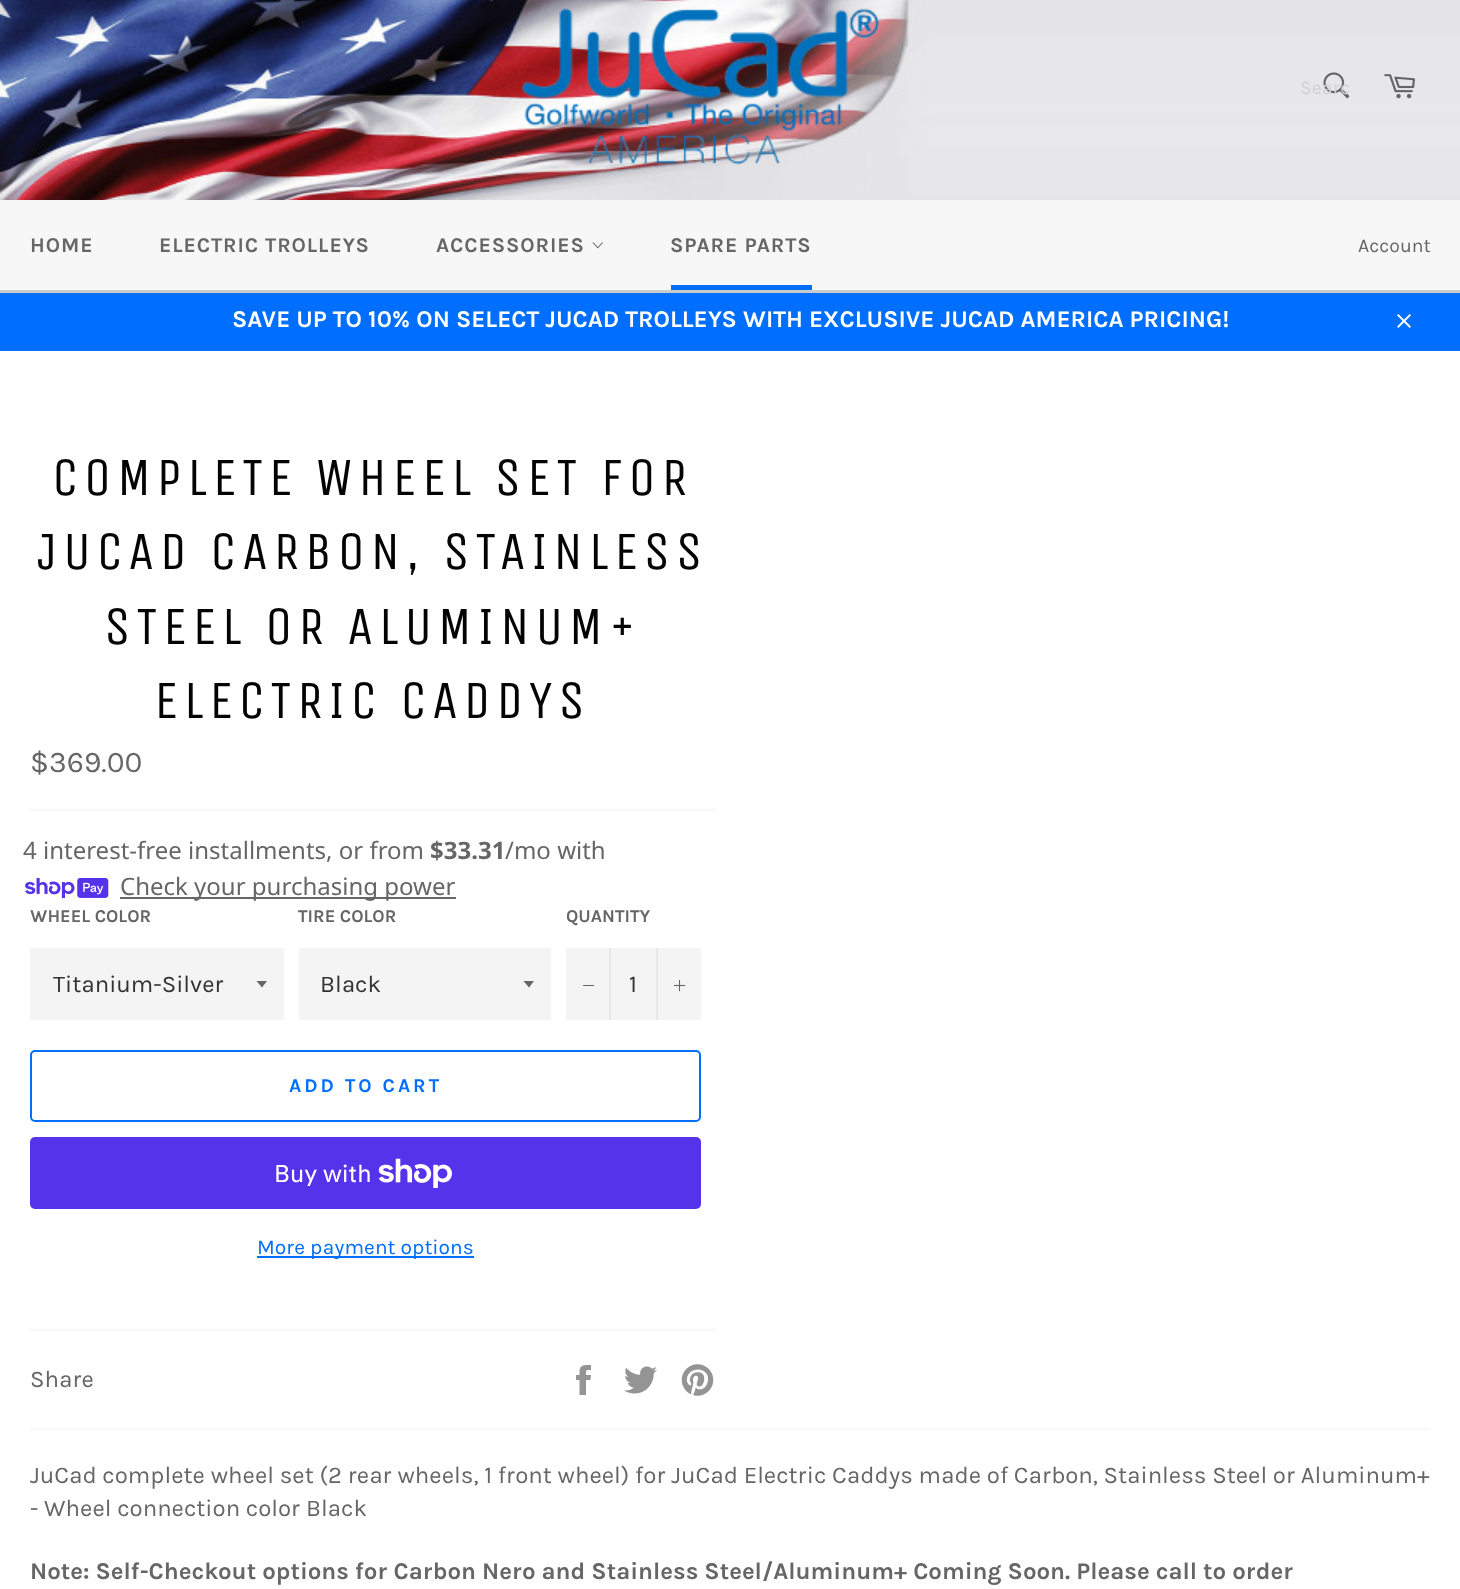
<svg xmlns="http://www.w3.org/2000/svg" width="1460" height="1589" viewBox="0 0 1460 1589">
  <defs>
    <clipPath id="clip1"><rect x="1301" y="77" width="48" height="22"/></clipPath>
  </defs>
  <rect width="100%" height="100%" fill="#ffffff"/>
  <image x="0" y="0" width="1460" height="200" href="img1.png"/>
  <image x="521" y="8" width="359" height="157" href="img2.png"/>
  <image x="1323" y="72" width="27" height="27" href="img3.png"/>
  <g clip-path="url(#clip1)">
    <text x="1300" y="94" font-family="Karla" font-size="19.5" fill="#d2d2d4">Searc</text>
  </g>
  <image x="1384" y="74" width="31" height="25" href="img4.png"/>
  <rect x="0" y="200" width="1460" height="90" fill="#f7f7f7"/>
  <rect x="0" y="290" width="1460" height="3" fill="#cccccc"/>
  <text x="30" y="252" font-family="Karla" font-size="21" font-weight="bold" letter-spacing="0.9" fill="#666666">HOME</text>
  <text x="159" y="252" font-family="Karla" font-size="21" font-weight="bold" letter-spacing="0.9" fill="#666666">ELECTRIC TROLLEYS</text>
  <text x="436" y="252" font-family="Karla" font-size="21" font-weight="bold" letter-spacing="0.9" fill="#666666">ACCESSORIES</text>
  <image x="592" y="242" width="11" height="7" href="img5.png"/>
  <text x="670" y="252" font-family="Karla" font-size="21" font-weight="bold" letter-spacing="0.9" fill="#666666">SPARE PARTS</text>
  <rect x="671" y="285" width="141" height="5" fill="#006eff"/>
  <text x="1358" y="252" font-family="Karla" font-size="19.5" fill="#666666">Account</text>
  <rect x="0" y="293" width="1460" height="58" fill="#006eff"/>
  <text x="232" y="327" font-family="Karla" font-size="24" font-weight="bold" fill="#ffffff">SAVE UP TO 10% ON SELECT JUCAD TROLLEYS WITH EXCLUSIVE JUCAD AMERICA PRICING!</text>
  <image x="1397" y="314" width="14" height="14" href="img6.png"/>
  <text x="52" y="495" font-family="Unica One" font-size="54" letter-spacing="5.4" fill="#030303">COMPLETE WHEEL SET FOR</text>
  <text x="37" y="569" font-family="Unica One" font-size="54" letter-spacing="5.4" fill="#030303">JUCAD CARBON, STAINLESS</text>
  <text x="104" y="644" font-family="Unica One" font-size="54" letter-spacing="5.4" fill="#030303">STEEL OR ALUMINUM+</text>
  <text x="154" y="718" font-family="Unica One" font-size="54" letter-spacing="5.4" fill="#030303">ELECTRIC CADDYS</text>
  <text x="30" y="772" font-family="Karla" font-size="30" fill="#666666">$369.00</text>
  <rect x="30" y="809" width="686" height="2" fill="#f7f7f7"/>
  <text x="23" y="859" font-family="Noto Sans" font-size="24" fill="#666666">4 interest-free installments, or from</text>
  <text x="430" y="859" font-family="Noto Sans" font-size="24" font-weight="bold" fill="#666666">$33.31</text>
  <text x="505" y="859" font-family="Noto Sans" font-size="24" fill="#666666">/mo with</text>
  <image x="25" y="878" width="84" height="21" href="img7.png"/>
  <rect x="120" y="897" width="336" height="2" fill="#666666"/>
  <text x="120" y="895" font-family="Noto Sans" font-size="24" fill="#666666">Check your purchasing power</text>
  <text x="30" y="922" font-family="Karla" font-size="18" font-weight="bold" fill="#666666">WHEEL COLOR</text>
  <rect x="30" y="948" width="254" height="72" fill="#f4f4f4"/>
  <path d="M256.5 981L262 987.5L267 981Z" fill="#666666"/>
  <text x="53" y="992" font-family="Karla" font-size="24" fill="#333333">Titanium-Silver</text>
  <text x="298" y="922" font-family="Karla" font-size="18" font-weight="bold" fill="#666666">TIRE COLOR</text>
  <rect x="299" y="948" width="252" height="72" fill="#f4f4f4"/>
  <path d="M523.5 981L529 987.5L534 981Z" fill="#666666"/>
  <text x="320" y="992" font-family="Karla" font-size="24" fill="#333333">Black</text>
  <text x="566" y="922" font-family="Karla" font-size="18" font-weight="bold" fill="#666666">QUANTITY</text>
  <rect x="566" y="948" width="135" height="72" fill="#f4f4f4"/>
  <rect x="609" y="948" width="2" height="72" fill="#e7e7e7"/>
  <rect x="583" y="985" width="11" height="1" fill="#666666"/>
  <text x="629" y="992" font-family="Karla" font-size="24" fill="#333333">1</text>
  <rect x="656" y="948" width="2" height="72" fill="#e7e7e7"/>
  <image x="674" y="980" width="12" height="12" href="img8.png"/>
  <rect x="31" y="1051" width="669" height="70" rx="4" fill="none" stroke="#006eff" stroke-width="2"/>
  <text x="289" y="1092" font-family="Karla" font-size="19.5" font-weight="bold" letter-spacing="3" fill="#006eff">ADD TO CART</text>
  <rect x="30" y="1137" width="671" height="72" rx="5" fill="#5433eb"/>
  <text x="274" y="1182" font-family="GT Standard" font-size="24" fill="#ffffff">Buy with</text>
  <image x="378" y="1158" width="74" height="30" href="img9.png"/>
  <rect x="257" y="1256" width="217" height="2" fill="#006eff"/>
  <text x="257" y="1254" font-family="Karla" font-size="21" fill="#006eff">More payment options</text>
  <rect x="30" y="1329" width="686" height="2" fill="#f7f7f7"/>
  <text x="30" y="1387" font-family="Karla" font-size="24" fill="#666666">Share</text>
  <image x="576" y="1365" width="15" height="30" href="img10.png"/>
  <image x="624" y="1366" width="33" height="28" href="img11.png"/>
  <image x="681" y="1364" width="33" height="32" href="img12.png"/>
  <rect x="30" y="1428" width="1401" height="2" fill="#f7f7f7"/>
  <text x="30" y="1483" font-family="Karla" font-size="24" fill="#666666">JuCad complete wheel set (2 rear wheels, 1 front wheel) for JuCad Electric Caddys made of Carbon, Stainless Steel or Aluminum+</text>
  <text x="30" y="1516" font-family="Karla" font-size="24" fill="#666666">- Wheel connection color Black</text>
  <text x="30" y="1579" font-family="Karla" font-size="24" font-weight="bold" fill="#666666">Note: Self-Checkout options for Carbon Nero and Stainless Steel/Aluminum+ Coming Soon. Please call to order</text>
</svg>
